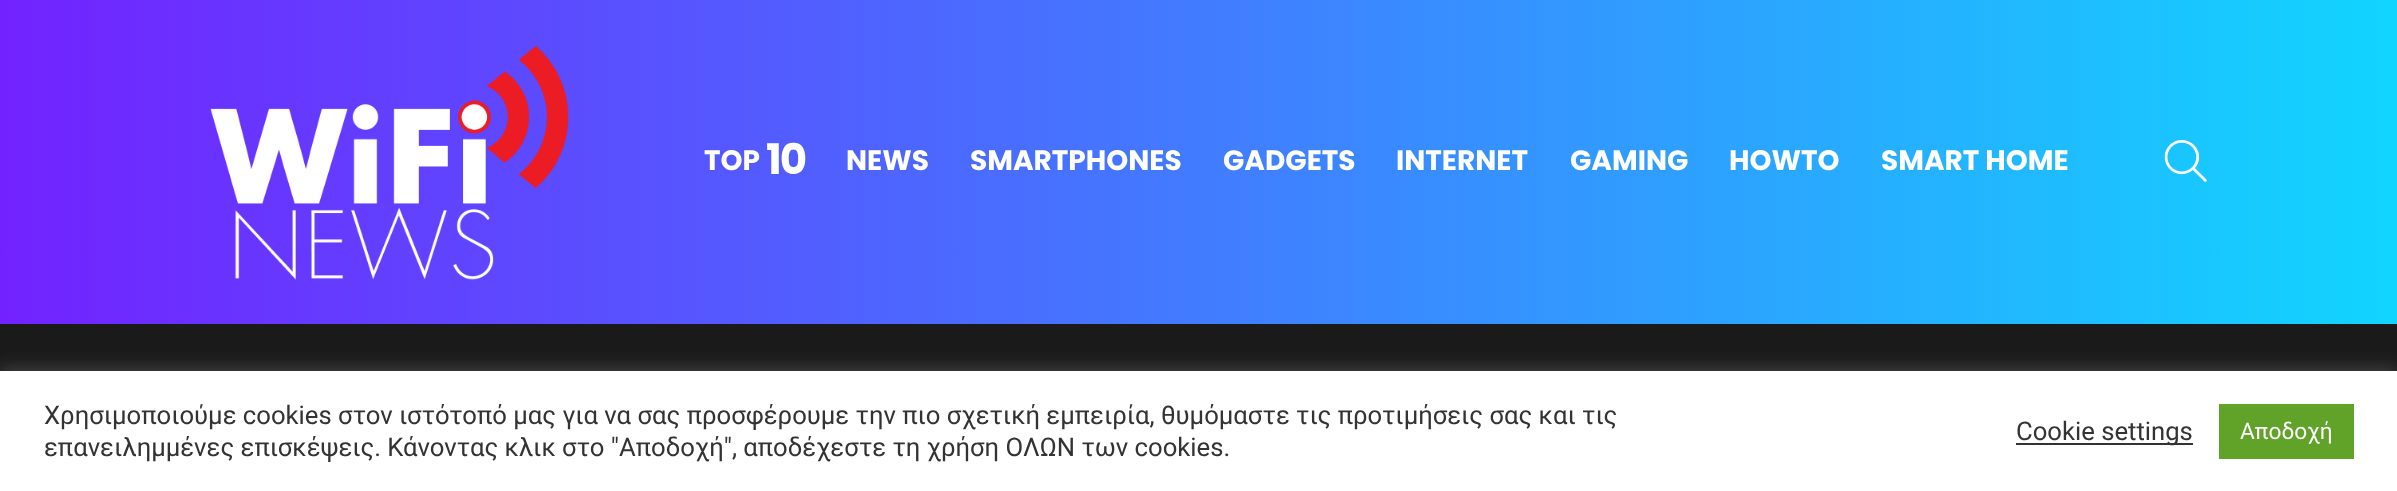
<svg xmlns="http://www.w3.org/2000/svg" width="2397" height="491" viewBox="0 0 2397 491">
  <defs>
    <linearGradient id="g1" gradientUnits="userSpaceOnUse" x1="0" y1="162" x2="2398" y2="162"><stop offset="0" stop-color="#7222ff"/><stop offset="1" stop-color="#11d5ff"/></linearGradient>
    <filter id="blur1" x="-50%" y="-200%" width="200%" height="500%"><feGaussianBlur stdDeviation="9"/></filter>
  </defs>
  <rect width="100%" height="100%" fill="#1a1a1a"/>
  <rect x="0" y="0" width="2397" height="324" fill="url(#g1)"/>
  <image x="210" y="46" width="359" height="234" href="img1.png"/>
  <text x="704" y="170" font-family="Poppins" font-size="28" font-weight="bold" fill="#ffffff">TOP</text>
  <text x="766" y="174" font-family="Poppins" font-size="42" font-weight="bold" letter-spacing="-2" fill="#ffffff">10</text>
  <text x="846" y="170" font-family="Poppins" font-size="28" font-weight="bold" fill="#ffffff">NEWS</text>
  <text x="970" y="170" font-family="Poppins" font-size="28" font-weight="bold" fill="#ffffff">SMARTPHONES</text>
  <text x="1223" y="170" font-family="Poppins" font-size="28" font-weight="bold" fill="#ffffff">GADGETS</text>
  <text x="1396" y="170" font-family="Poppins" font-size="28" font-weight="bold" fill="#ffffff">INTERNET</text>
  <text x="1570" y="170" font-family="Poppins" font-size="28" font-weight="bold" fill="#ffffff">GAMING</text>
  <text x="1729" y="170" font-family="Poppins" font-size="28" font-weight="bold" fill="#ffffff">HOWTO</text>
  <text x="1881" y="170" font-family="Poppins" font-size="28" font-weight="bold" fill="#ffffff">SMART HOME</text>
  <image x="2164" y="140" width="43" height="42" href="img2.png"/>
  <rect x="0" y="369" width="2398" height="121" fill="#acabab" fill-opacity="0.3" filter="url(#blur1)"/>
  <rect x="0" y="371" width="2397" height="120" fill="#ffffff"/>
  <text x="44" y="424" font-family="Roboto" font-size="25.67" fill="#333333">Χρησιμοποιούμε cookies στον ιστότοπό μας για να σας προσφέρουμε την πιο σχετική εμπειρία, θυμόμαστε τις προτιμήσεις σας και τις</text>
  <text x="44" y="456" font-family="Roboto" font-size="25.67" fill="#333333">επανειλημμένες επισκέψεις. Κάνοντας κλικ στο "Αποδοχή", αποδέχεστε τη χρήση ΟΛΩΝ των cookies.</text>
  <rect x="2016" y="443" width="177" height="2" fill="#333333"/>
  <text x="2016" y="440" font-family="Roboto" font-size="25.67" fill="#333333">Cookie settings</text>
  <rect x="2219" y="404" width="135" height="55" fill="#61a229"/>
  <text x="2240" y="439" font-family="Roboto" font-size="22.75" fill="#ffffff">Αποδοχή</text>
</svg>
